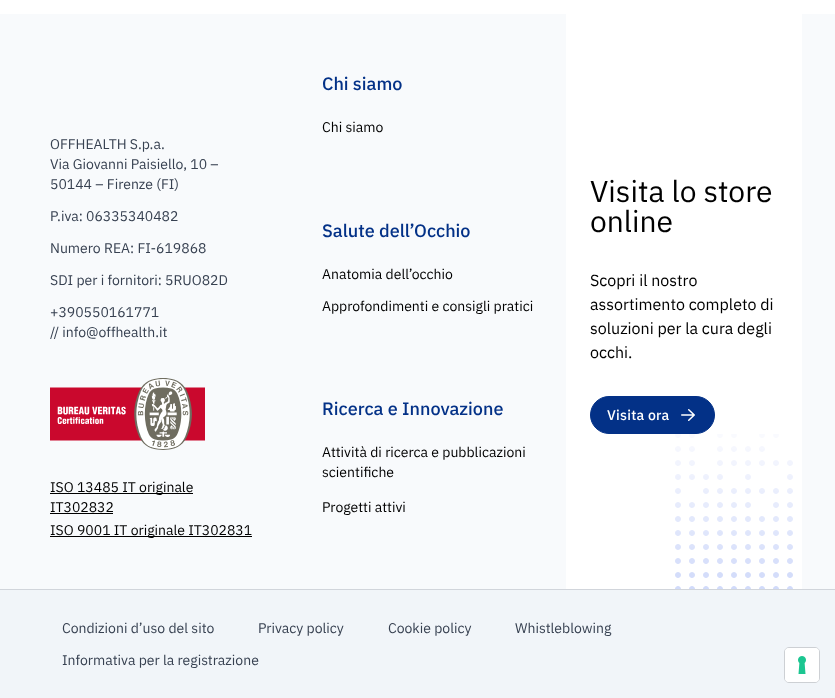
<svg xmlns="http://www.w3.org/2000/svg" width="835" height="698" viewBox="0 0 835 698">
  <rect width="100%" height="100%" fill="#ffffff"/>
  <rect x="0" y="14" width="835" height="575" fill="#f8fafc"/>
  <text x="50" y="149" font-family="IBM Plex Sans" font-size="14" fill="#374151">OFFHEALTH S.p.a.</text>
  <text x="50" y="169" font-family="IBM Plex Sans" font-size="14" fill="#374151">Via Giovanni Paisiello, 10 –</text>
  <text x="50" y="189" font-family="IBM Plex Sans" font-size="14" fill="#374151">50144 – Firenze (FI)</text>
  <text x="50" y="221" font-family="IBM Plex Sans" font-size="14" fill="#374151">P.iva: 06335340482</text>
  <text x="50" y="253" font-family="IBM Plex Sans" font-size="14" fill="#374151">Numero REA: FI-619868</text>
  <text x="50" y="285" font-family="IBM Plex Sans" font-size="14" fill="#374151">SDI per i fornitori: 5RUO82D</text>
  <text x="50" y="317" font-family="IBM Plex Sans" font-size="14" fill="#374151">+390550161771</text>
  <text x="50" y="337" font-family="IBM Plex Sans" font-size="14" fill="#374151">// info@offhealth.it</text>
  <image x="50" y="378" width="155" height="72" href="img1.png"/>
  <rect x="50" y="493" width="143" height="1" fill="#000000"/>
  <text x="50" y="492" font-family="IBM Plex Sans" font-size="14" fill="#000000">ISO 13485 IT originale</text>
  <text x="50" y="512" font-family="IBM Plex Sans" font-size="14" fill="#000000">IT302832</text>
  <rect x="50" y="513" width="63" height="1" fill="#000000"/>
  <rect x="50" y="536" width="202" height="1" fill="#000000"/>
  <text x="50" y="535" font-family="IBM Plex Sans" font-size="14" fill="#000000">ISO 9001 IT originale IT302831</text>
  <text x="322" y="90" font-family="IBM Plex Sans" font-size="18" font-weight="500" fill="#033187">Chi siamo</text>
  <text x="322" y="132" font-family="IBM Plex Sans" font-size="14" fill="#000000">Chi siamo</text>
  <text x="322" y="237" font-family="IBM Plex Sans" font-size="18" font-weight="500" fill="#033187">Salute dell’Occhio</text>
  <text x="322" y="279" font-family="IBM Plex Sans" font-size="14" fill="#000000">Anatomia dell’occhio</text>
  <text x="322" y="311" font-family="IBM Plex Sans" font-size="14" fill="#000000">Approfondimenti e consigli pratici</text>
  <text x="322" y="415" font-family="IBM Plex Sans" font-size="18" font-weight="500" fill="#033187">Ricerca e Innovazione</text>
  <text x="322" y="457" font-family="IBM Plex Sans" font-size="14" fill="#000000">Attività di ricerca e pubblicazioni</text>
  <text x="322" y="477" font-family="IBM Plex Sans" font-size="14" fill="#000000">scientifiche</text>
  <text x="322" y="512" font-family="IBM Plex Sans" font-size="14" fill="#000000">Progetti attivi</text>
  <rect x="566" y="14" width="236" height="575" fill="#ffffff"/>
  <image x="675" y="434" width="118" height="155" href="img2.png"/>
  <text x="590" y="202" font-family="IBM Plex Sans" font-size="30" fill="#000000">Visita lo store</text>
  <text x="590" y="232" font-family="IBM Plex Sans" font-size="30" fill="#000000">online</text>
  <text x="590" y="286" font-family="IBM Plex Sans" font-size="16" fill="#000000">Scopri il nostro</text>
  <text x="590" y="310" font-family="IBM Plex Sans" font-size="16" fill="#000000">assortimento completo di</text>
  <text x="590" y="334" font-family="IBM Plex Sans" font-size="16" fill="#000000">soluzioni per la cura degli</text>
  <text x="590" y="358" font-family="IBM Plex Sans" font-size="16" fill="#000000">occhi.</text>
  <rect x="590.5" y="396.5" width="124" height="37" rx="18.5" fill="#033187" stroke="#033187"/>
  <text x="607" y="420" font-family="IBM Plex Sans" font-size="14" font-weight="500" letter-spacing="0.25" fill="#ffffff">Visita ora</text>
  <image x="681" y="409" width="14" height="12" href="img3.png"/>
  <rect x="0" y="590" width="835" height="108" fill="#f1f5f9"/>
  <rect x="0" y="589" width="835" height="1" fill="#d1d5db"/>
  <text x="62" y="633" font-family="IBM Plex Sans" font-size="14" fill="#374151">Condizioni d’uso del sito</text>
  <text x="258" y="633" font-family="IBM Plex Sans" font-size="14" fill="#374151">Privacy policy</text>
  <text x="388" y="633" font-family="IBM Plex Sans" font-size="14" fill="#374151">Cookie policy</text>
  <text x="515" y="633" font-family="IBM Plex Sans" font-size="14" fill="#374151">Whistleblowing</text>
  <text x="62" y="665" font-family="IBM Plex Sans" font-size="14" fill="#374151">Informativa per la registrazione</text>
  <rect x="784.5" y="647.5" width="35" height="35" rx="4.5" fill="none" stroke="#cdd0d4"/>
  <rect x="785" y="648" width="34" height="34" rx="4" fill="#ffffff"/>
  <image x="798" y="656" width="8" height="18" href="img4.png"/>
</svg>
